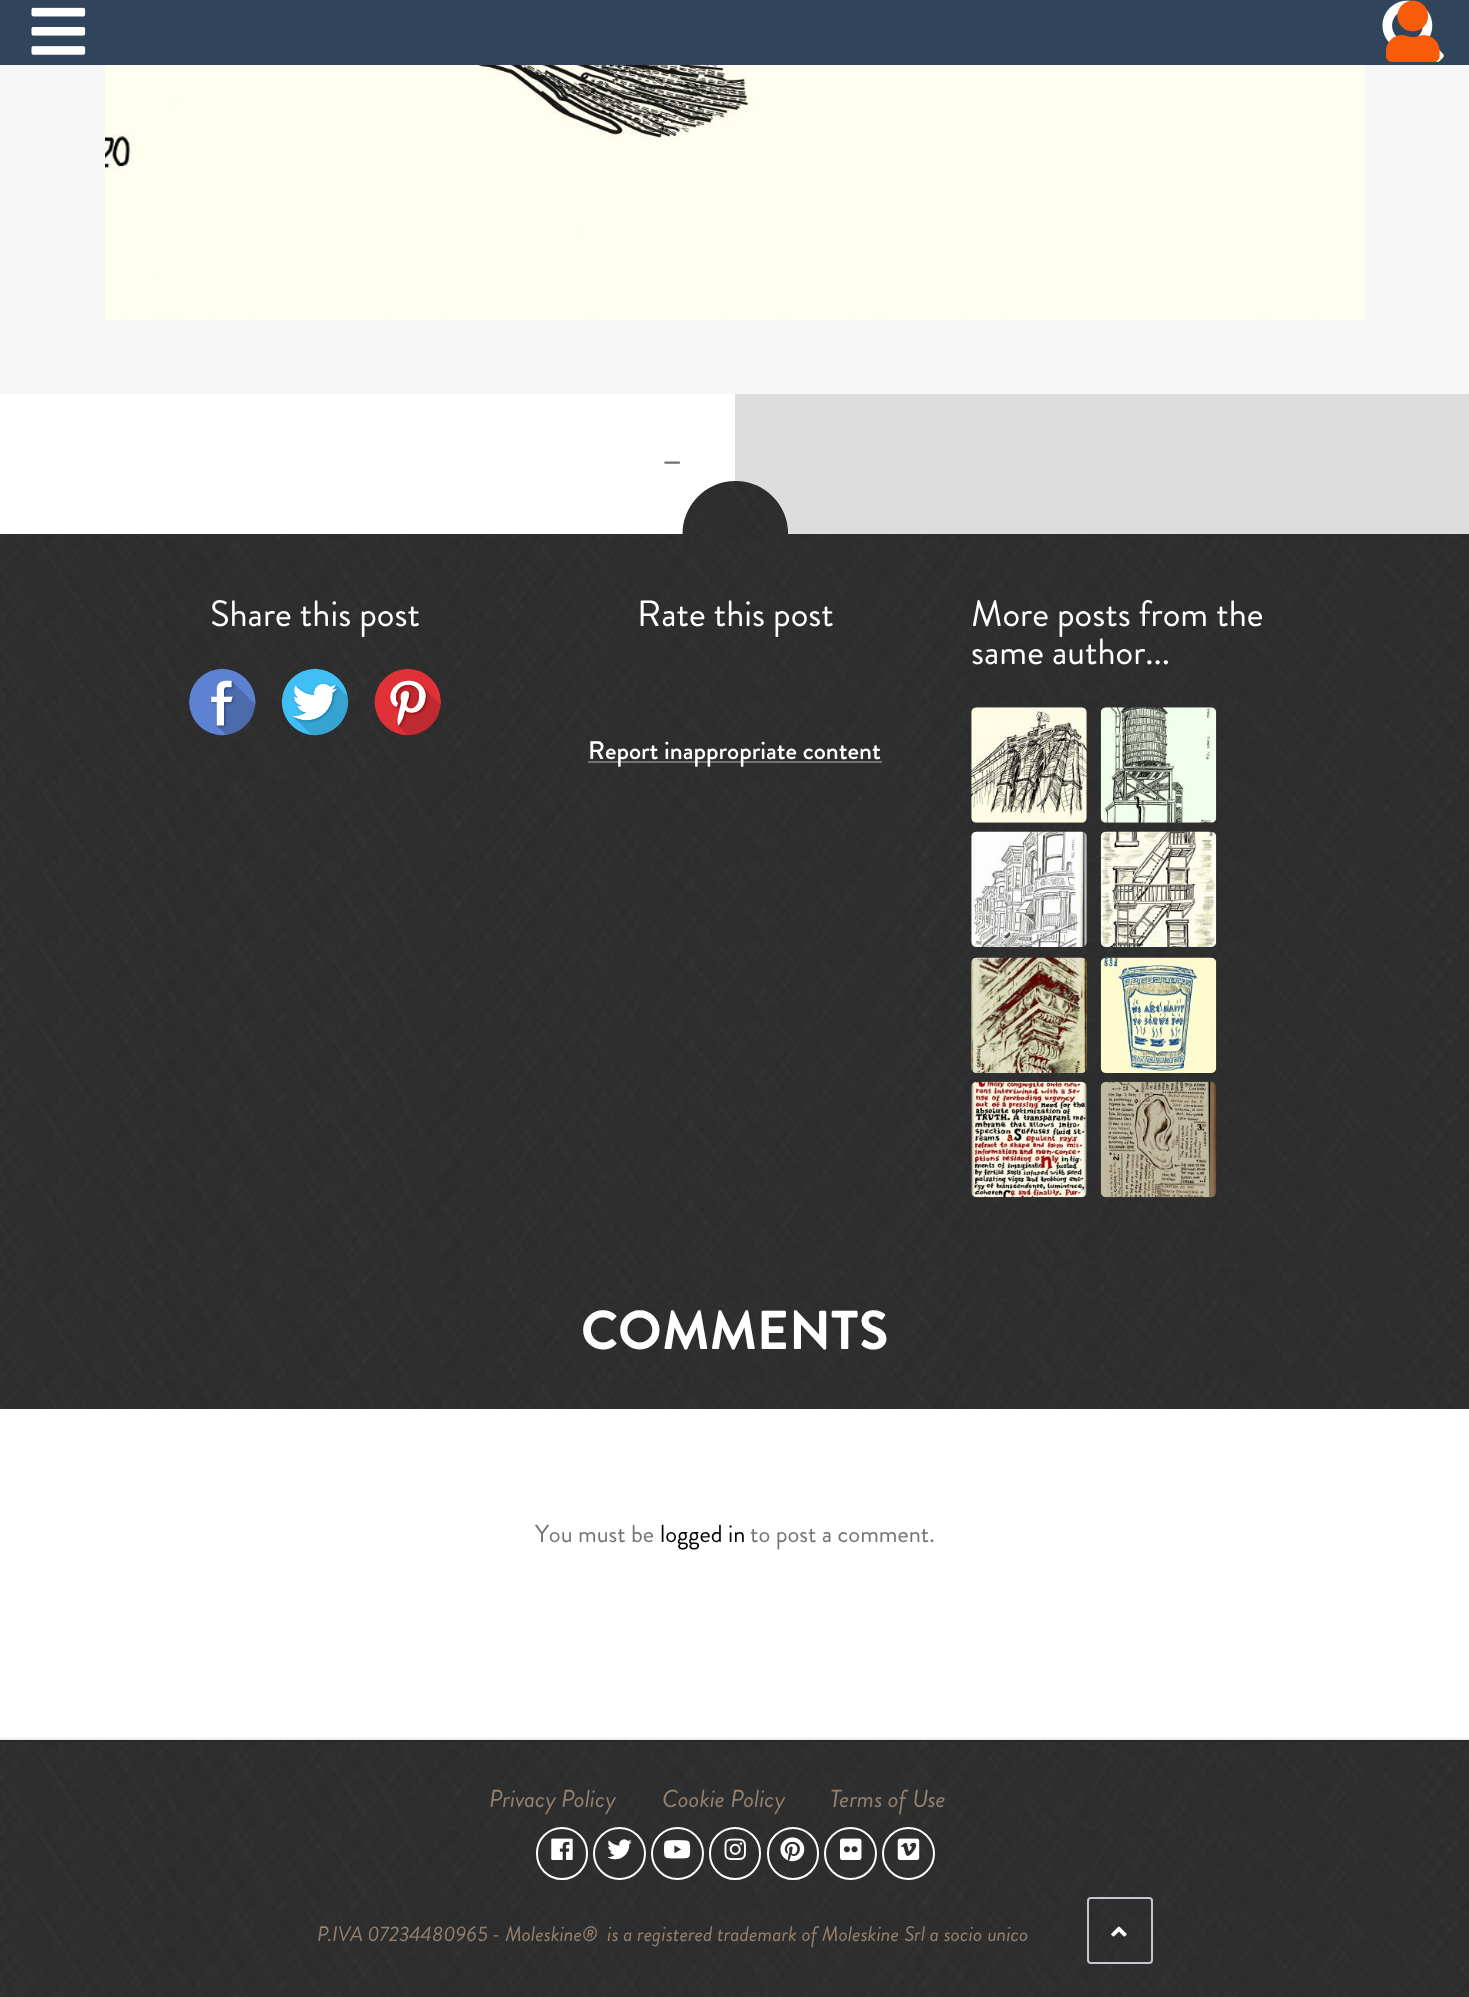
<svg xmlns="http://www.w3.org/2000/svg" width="1469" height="1997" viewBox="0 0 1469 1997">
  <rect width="100%" height="100%" fill="#ffffff"/>
  <rect x="0" y="0" width="1469" height="65" fill="#30455c"/>
  <image x="1382" y="0" width="62" height="62" href="img1.png"/>
  <image x="31" y="7" width="55" height="48" href="img2.png"/>
  <image x="1386" y="0" width="54" height="62" href="img3.png"/>
  <rect x="0" y="65" width="1469" height="329" fill="#f7f7f7"/>
  <image x="105" y="65" width="1260" height="256" href="img4.png"/>
  <text x="662" y="474" font-family="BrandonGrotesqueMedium" font-size="37" font-weight="500" fill="#737373">–</text>
  <rect x="735" y="394" width="734" height="140" fill="#dddddd"/>
  <image x="0" y="534" width="1469" height="735" href="img5.png"/>
  <path d="M735.5 481C764.5 481 788 504.5 788 533.5V534H683V533.5C683 504.5 706.5 481 735.5 481Z" fill="#2b2b2b"/>
  <image x="682" y="481" width="106" height="53" href="img6.png"/>
  <text x="210" y="626" font-family="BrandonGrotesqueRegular" font-size="36.5" fill="#ffffff">Share this post</text>
  <image x="189" y="668" width="67" height="68" href="img7.png"/>
  <image x="281" y="668" width="68" height="68" href="img8.png"/>
  <image x="374" y="668" width="67" height="68" href="img9.png"/>
  <text x="637" y="626" font-family="BrandonGrotesqueRegular" font-size="36.5" fill="#ffffff">Rate this post</text>
  <rect x="588" y="761" width="294" height="2" fill="#737373"/>
  <text x="588" y="759" font-family="BrandonGrotesqueMedium" font-size="25.5" font-weight="500" fill="#ffffff">Report inappropriate content</text>
  <text x="971" y="626" font-family="BrandonGrotesqueRegular" font-size="36.5" fill="#ffffff">More posts from the</text>
  <text x="971" y="664" font-family="BrandonGrotesqueRegular" font-size="36.5" fill="#ffffff">same author...</text>
  <image x="971" y="707" width="116" height="116" href="img10.png"/>
  <image x="1100" y="707" width="117" height="116" href="img11.png"/>
  <image x="971" y="831" width="116" height="116" href="img12.png"/>
  <image x="1100" y="831" width="117" height="116" href="img13.png"/>
  <image x="971" y="957" width="116" height="116" href="img14.png"/>
  <image x="1100" y="957" width="117" height="116" href="img15.png"/>
  <image x="971" y="1081" width="116" height="117" href="img16.png"/>
  <image x="1100" y="1081" width="117" height="117" href="img17.png"/>
  <rect x="0" y="1738" width="1469" height="2" fill="#eeeeee"/>
  <image x="0" y="1269" width="1469" height="140" href="img18.png"/>
  <text x="581" y="1349" font-family="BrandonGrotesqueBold" font-size="54.5" font-weight="bold" fill="#ffffff">COMMENTS</text>
  <text x="535" y="1542" font-family="BrandonGrotesqueRegular" font-size="24.5" fill="#737373">You must be</text>
  <text x="660" y="1542" font-family="BrandonGrotesqueRegular" font-size="24.5" fill="#000000">logged in</text>
  <text x="750" y="1542" font-family="BrandonGrotesqueRegular" font-size="24.5" fill="#737373">to post a comment.</text>
  <image x="0" y="1740" width="1469" height="257" href="img19.png"/>
  <rect x="0" y="1740" width="1469" height="2" fill="#000000" fill-opacity="0.11"/>
  <text x="489" y="1807" font-family="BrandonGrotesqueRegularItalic" font-size="24.5" font-style="italic" fill="#93806f">Privacy Policy</text>
  <text x="662" y="1807" font-family="BrandonGrotesqueRegularItalic" font-size="24.5" font-style="italic" fill="#93806f">Cookie Policy</text>
  <text x="830" y="1807" font-family="BrandonGrotesqueRegularItalic" font-size="24.5" font-style="italic" fill="#93806f">Terms of Use</text>
  <rect x="537" y="1828" width="50" height="51" rx="25" fill="none" stroke="#ffffff" stroke-width="2"/>
  <image x="551" y="1838" width="22" height="22" href="img20.png"/>
  <circle cx="619.5" cy="1853.5" r="25.5" fill="none" stroke="#ffffff" stroke-width="2"/>
  <image x="607" y="1839" width="25" height="21" href="img21.png"/>
  <circle cx="677.5" cy="1853.5" r="25.5" fill="none" stroke="#ffffff" stroke-width="2"/>
  <image x="663" y="1840" width="28" height="19" href="img22.png"/>
  <rect x="710" y="1828" width="50" height="51" rx="25" fill="none" stroke="#ffffff" stroke-width="2"/>
  <image x="724" y="1838" width="22" height="22" href="img23.png"/>
  <rect x="768" y="1828" width="50" height="51" rx="25" fill="none" stroke="#ffffff" stroke-width="2"/>
  <image x="780" y="1837" width="25" height="25" href="img24.png"/>
  <circle cx="850.5" cy="1853.5" r="25.5" fill="none" stroke="#ffffff" stroke-width="2"/>
  <image x="840" y="1838" width="22" height="22" href="img25.png"/>
  <circle cx="908.5" cy="1853.5" r="25.5" fill="none" stroke="#ffffff" stroke-width="2"/>
  <image x="897" y="1838" width="23" height="22" href="img26.png"/>
  <text x="317" y="1941" font-family="BrandonGrotesqueRegularItalic" font-size="21" font-style="italic" fill="#93806f" xml:space="preserve">P.IVA 07234480965 - Moleskine®  is a registered trademark of Moleskine Srl a socio unico</text>
  <rect x="1088" y="1898" width="64" height="65" rx="3" fill="none" stroke="#c2c8ce" stroke-width="2"/>
  <image x="1111" y="1926" width="16" height="11" href="img27.png"/>
</svg>
